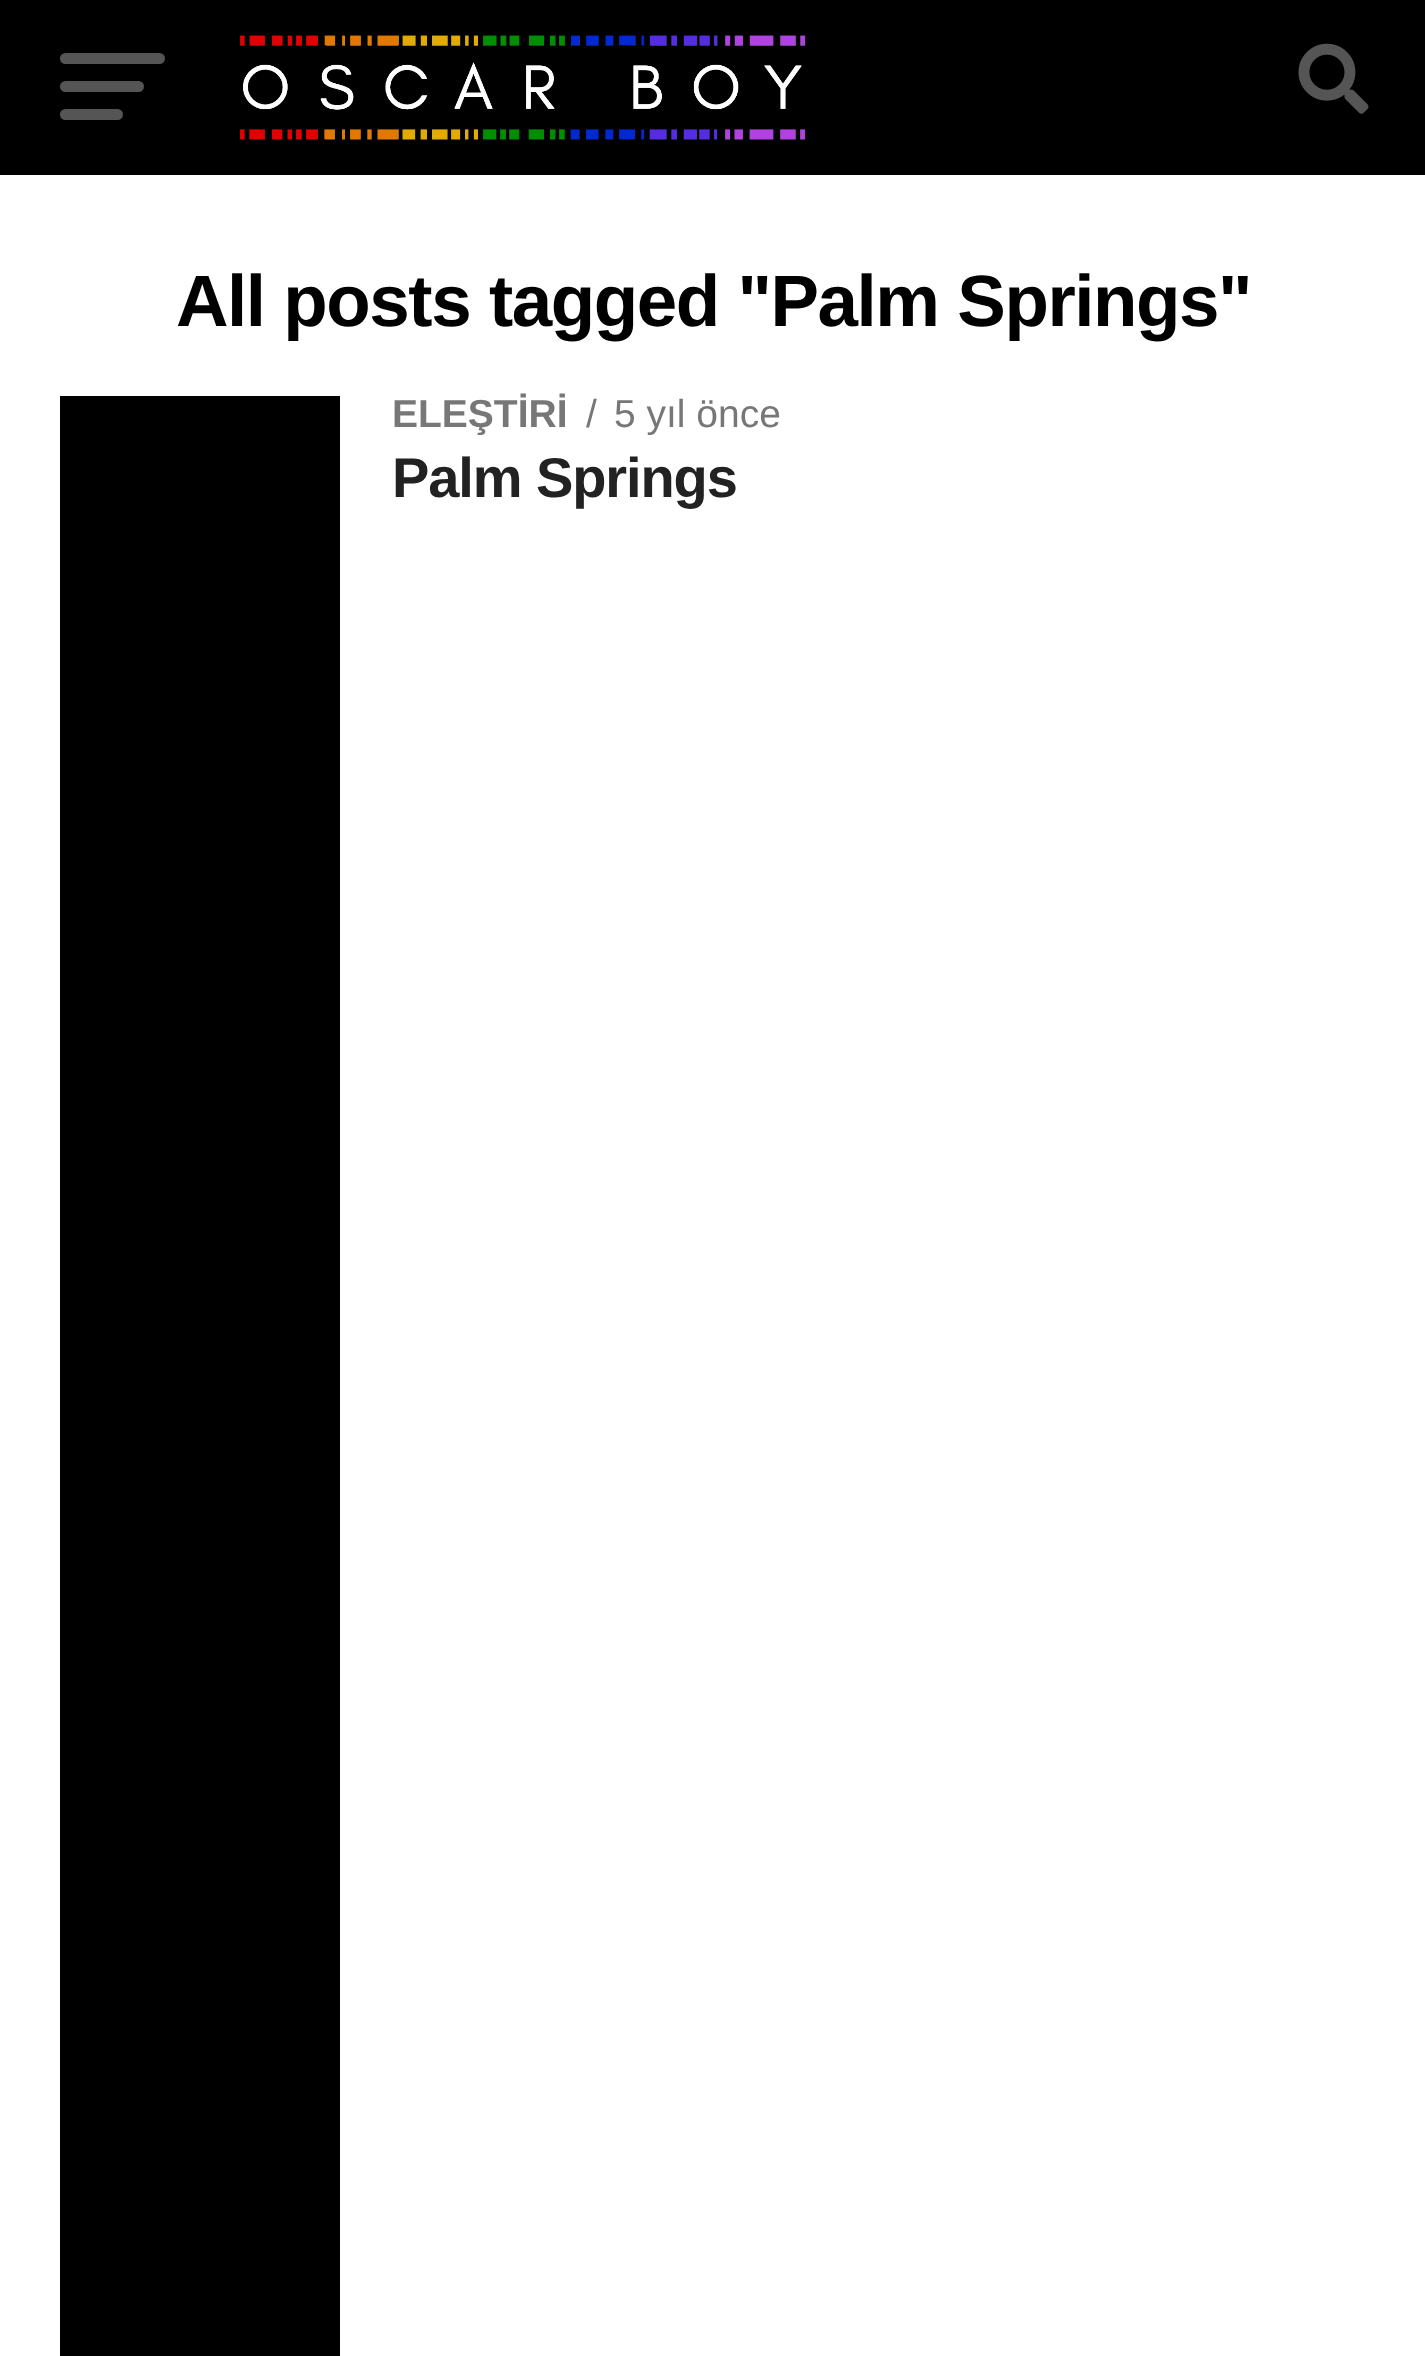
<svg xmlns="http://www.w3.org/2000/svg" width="1425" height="2356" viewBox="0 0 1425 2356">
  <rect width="100%" height="100%" fill="#ffffff"/>
  <rect x="0" y="0" width="1425" height="175" fill="#000000"/>
  <rect x="60" y="53" width="105" height="11" rx="5.5" fill="#555555"/>
  <rect x="60" y="81" width="84" height="11" rx="5.5" fill="#555555"/>
  <rect x="60" y="109" width="63" height="11" rx="5.5" fill="#555555"/>
  <image x="240" y="35" width="566" height="105" href="img1.png"/>
  <image x="1298" y="43" width="71" height="71" href="img2.png"/>
  <text x="176" y="326" font-family="Liberation Sans" font-size="72.75" font-weight="bold" letter-spacing="-1.45" fill="#000000">All posts tagged "Palm Springs"</text>
  <rect x="60" y="396" width="280" height="1960" fill="#000000"/>
  <text x="392" y="427" font-family="Liberation Sans" font-size="39" font-weight="bold" fill="#777777">ELEŞTİRİ</text>
  <text x="586" y="427" font-family="Liberation Sans" font-size="39" fill="#777777">/</text>
  <text x="614" y="427" font-family="Liberation Sans" font-size="39" fill="#777777">5 yıl önce</text>
  <text x="392" y="497" font-family="Liberation Sans" font-size="56" font-weight="bold" letter-spacing="-1.1" fill="#222222">Palm Springs</text>
</svg>
